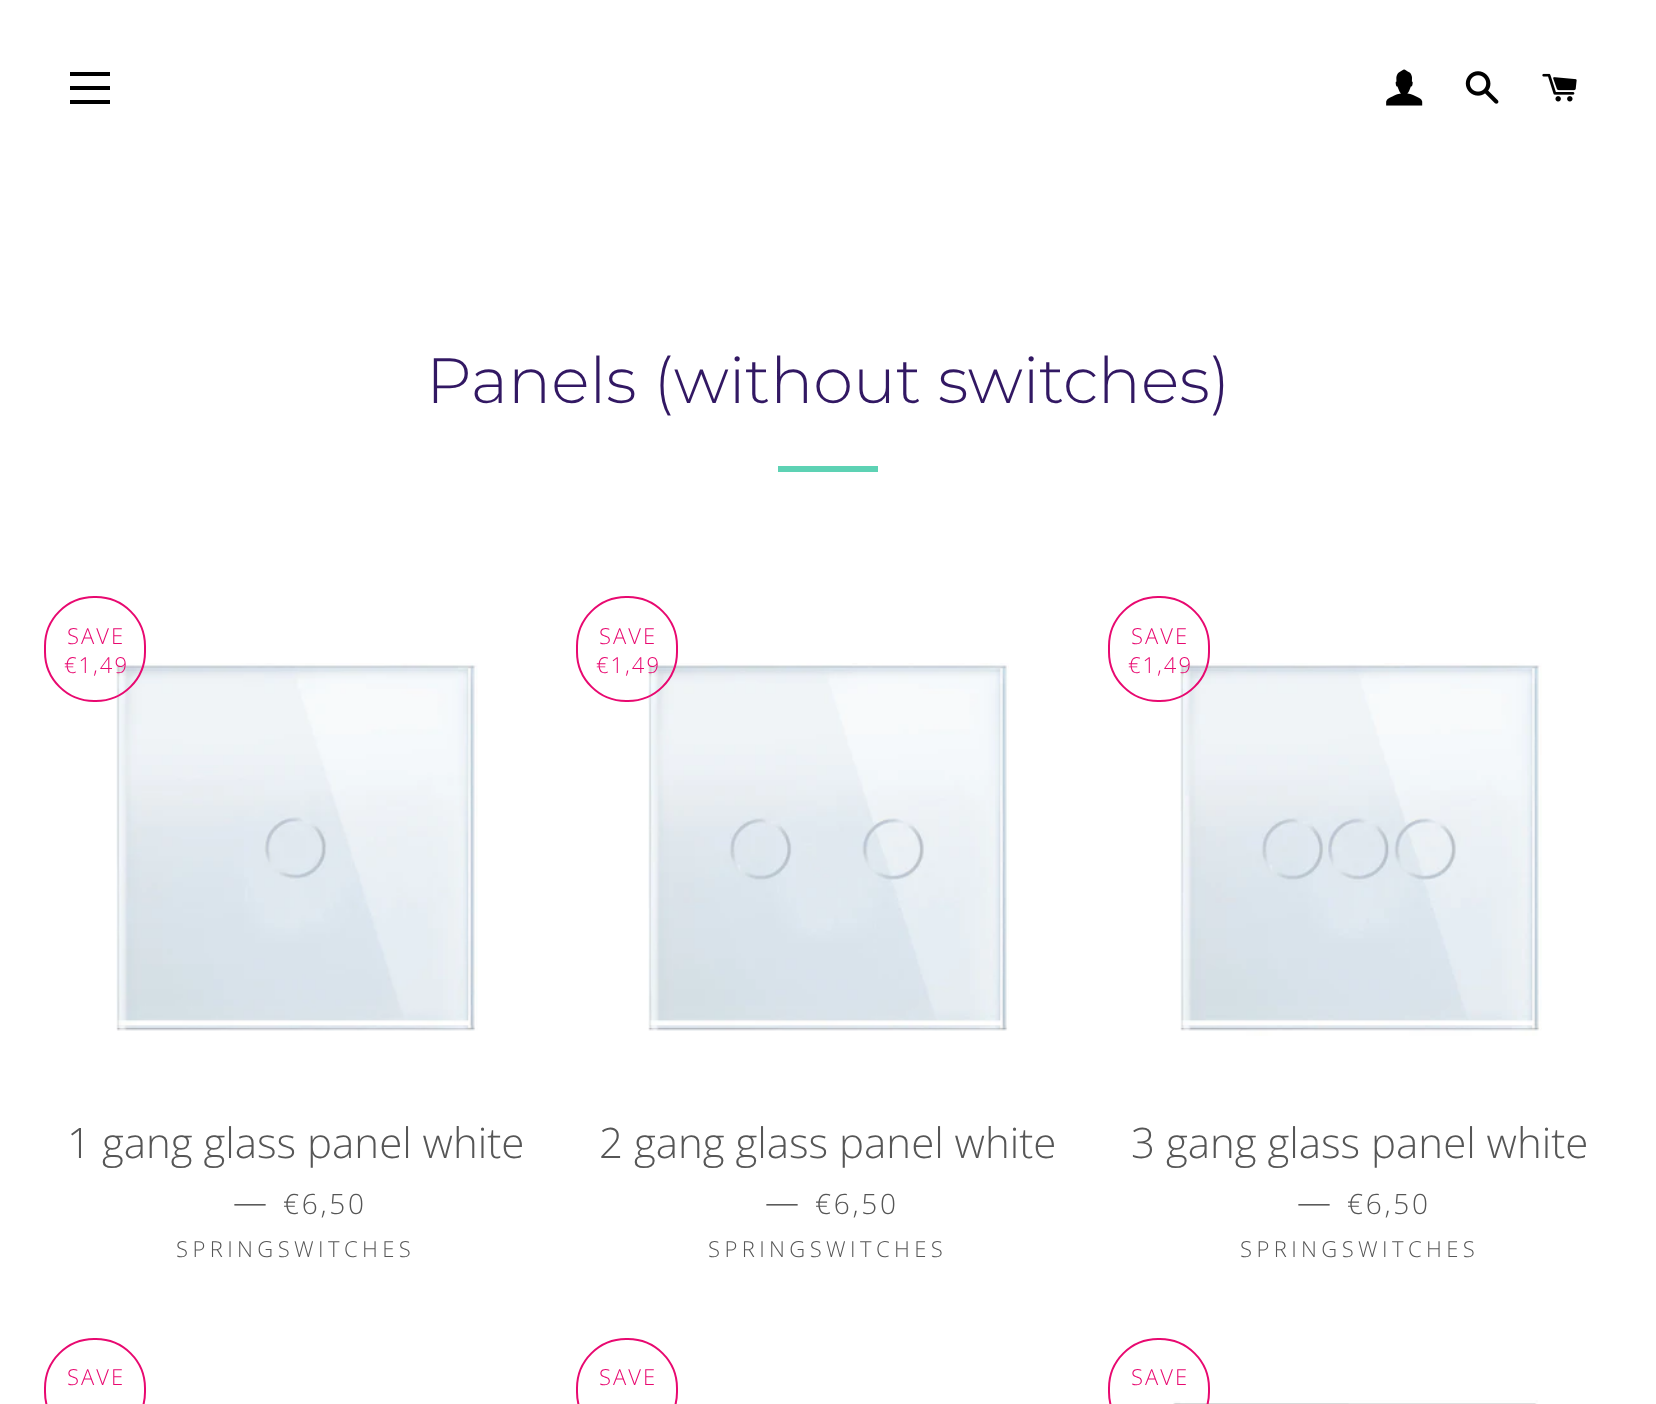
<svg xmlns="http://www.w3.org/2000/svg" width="1656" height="1404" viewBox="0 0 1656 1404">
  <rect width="100%" height="100%" fill="#ffffff"/>
  <rect x="70" y="72" width="40" height="4" fill="#000000"/>
  <rect x="70" y="86" width="40" height="4" fill="#000000"/>
  <rect x="70" y="100" width="40" height="4" fill="#000000"/>
  <image x="1386" y="69" width="37" height="37" href="img1.png"/>
  <image x="1465" y="71" width="34" height="33" href="img2.png"/>
  <image x="1542" y="73" width="35" height="29" href="img3.png"/>
  <text x="426" y="403" font-family="Montserrat" font-size="64" font-weight="300" fill="#321863">Panels (without switches)</text>
  <rect x="778" y="466" width="100" height="6" fill="#5dd2b4"/>
  <image x="116" y="663" width="362" height="368" href="img4.png"/>
  <rect x="45" y="597" width="100" height="104" rx="49" fill="none" stroke="#e80970" stroke-width="2"/>
  <text x="67" y="644" font-family="Open Sans" font-size="22" font-weight="300" letter-spacing="2" fill="#e80970">SAVE</text>
  <text x="64" y="673" font-family="Open Sans" font-size="22" font-weight="300" letter-spacing="2" fill="#e80970">€1,49</text>
  <text x="67" y="1158" font-family="Open Sans" font-size="42" font-weight="300" fill="#565656">1 gang glass panel white</text>
  <text x="233" y="1214" font-family="Open Sans" font-size="34" font-weight="300" fill="#565656">—</text>
  <text x="283" y="1214" font-family="Open Sans" font-size="28" font-weight="300" letter-spacing="2.75" fill="#565656">€6,50</text>
  <text x="176" y="1257" font-family="Open Sans" font-size="22" font-weight="300" letter-spacing="4.4" fill="#565656">SPRINGSWITCHES</text>
  <image x="648" y="663" width="361" height="368" href="img5.png"/>
  <rect x="577" y="597" width="100" height="104" rx="49" fill="none" stroke="#e80970" stroke-width="2"/>
  <text x="599" y="644" font-family="Open Sans" font-size="22" font-weight="300" letter-spacing="2" fill="#e80970">SAVE</text>
  <text x="596" y="673" font-family="Open Sans" font-size="22" font-weight="300" letter-spacing="2" fill="#e80970">€1,49</text>
  <text x="599" y="1158" font-family="Open Sans" font-size="42" font-weight="300" fill="#565656">2 gang glass panel white</text>
  <text x="765" y="1214" font-family="Open Sans" font-size="34" font-weight="300" fill="#565656">—</text>
  <text x="815" y="1214" font-family="Open Sans" font-size="28" font-weight="300" letter-spacing="2.75" fill="#565656">€6,50</text>
  <text x="708" y="1257" font-family="Open Sans" font-size="22" font-weight="300" letter-spacing="4.4" fill="#565656">SPRINGSWITCHES</text>
  <image x="1180" y="663" width="362" height="373" href="img6.png"/>
  <rect x="1109" y="597" width="100" height="104" rx="49" fill="none" stroke="#e80970" stroke-width="2"/>
  <text x="1131" y="644" font-family="Open Sans" font-size="22" font-weight="300" letter-spacing="2" fill="#e80970">SAVE</text>
  <text x="1128" y="673" font-family="Open Sans" font-size="22" font-weight="300" letter-spacing="2" fill="#e80970">€1,49</text>
  <text x="1131" y="1158" font-family="Open Sans" font-size="42" font-weight="300" fill="#565656">3 gang glass panel white</text>
  <text x="1297" y="1214" font-family="Open Sans" font-size="34" font-weight="300" fill="#565656">—</text>
  <text x="1347" y="1214" font-family="Open Sans" font-size="28" font-weight="300" letter-spacing="2.75" fill="#565656">€6,50</text>
  <text x="1240" y="1257" font-family="Open Sans" font-size="22" font-weight="300" letter-spacing="4.4" fill="#565656">SPRINGSWITCHES</text>
  <rect x="45" y="1339" width="100" height="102" rx="49" fill="none" stroke="#e80970" stroke-width="2"/>
  <text x="67" y="1385" font-family="Open Sans" font-size="22" font-weight="300" letter-spacing="2" fill="#e80970">SAVE</text>
  <rect x="577" y="1339" width="100" height="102" rx="49" fill="none" stroke="#e80970" stroke-width="2"/>
  <text x="599" y="1385" font-family="Open Sans" font-size="22" font-weight="300" letter-spacing="2" fill="#e80970">SAVE</text>
  <image x="1173" y="1400" width="365" height="4" href="img7.png"/>
  <rect x="1109" y="1339" width="100" height="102" rx="49" fill="none" stroke="#e80970" stroke-width="2"/>
  <text x="1131" y="1385" font-family="Open Sans" font-size="22" font-weight="300" letter-spacing="2" fill="#e80970">SAVE</text>
</svg>
